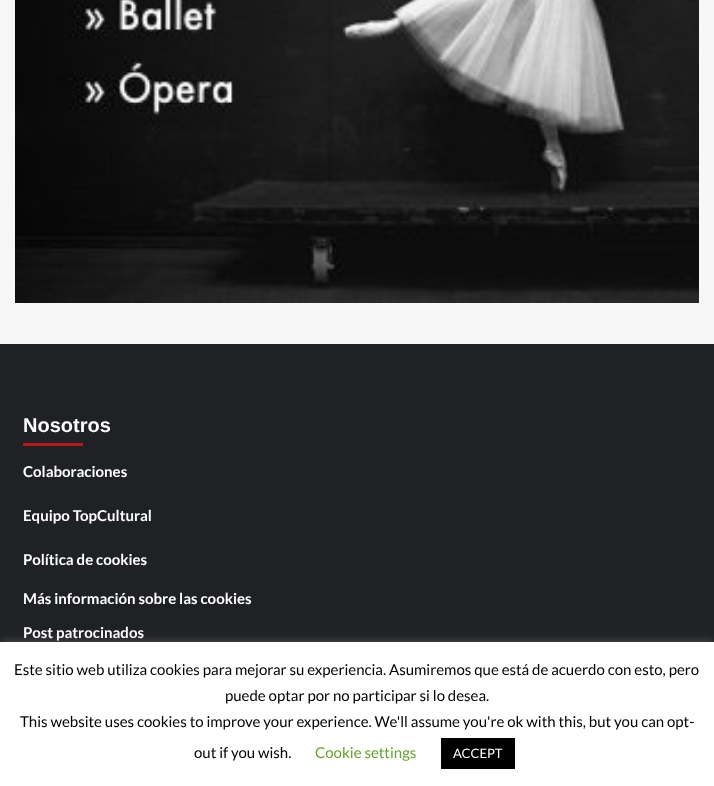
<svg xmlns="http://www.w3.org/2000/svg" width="714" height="786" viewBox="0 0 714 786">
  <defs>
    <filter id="blur1" x="-50%" y="-200%" width="200%" height="500%"><feGaussianBlur stdDeviation="5"/></filter>
  </defs>
  <rect width="100%" height="100%" fill="#f7f7f7"/>
  <image x="15" y="0" width="684" height="303" href="img1.png"/>
  <rect x="0" y="344" width="714" height="298" fill="#1f2125"/>
  <text x="23" y="432" font-family="Liberation Sans" font-size="20" font-weight="bold" fill="#ffffff">Nosotros</text>
  <rect x="23" y="443" width="60" height="3" fill="#bb1919"/>
  <text x="23" y="477" font-family="Lato" font-size="15" font-weight="bold" fill="#ffffff">Colaboraciones</text>
  <text x="23" y="521" font-family="Lato" font-size="15" font-weight="bold" fill="#ffffff">Equipo TopCultural</text>
  <text x="23" y="565" font-family="Lato" font-size="15" font-weight="bold" fill="#ffffff">Política de cookies</text>
  <text x="23" y="604" font-family="Lato" font-size="15" font-weight="bold" fill="#ffffff">Más información sobre las cookies</text>
  <text x="23" y="638" font-family="Lato" font-size="15" font-weight="bold" fill="#ffffff">Post patrocinados</text>
  <rect x="0" y="641" width="714" height="144" fill="#acabab" fill-opacity="0.3" filter="url(#blur1)"/>
  <rect x="0" y="642" width="714" height="144" fill="#ffffff"/>
  <text x="14" y="675" font-family="Lato" font-size="15" fill="#000000">Este sitio web utiliza cookies para mejorar su experiencia. Asumiremos que está de acuerdo con esto, pero</text>
  <text x="225" y="701" font-family="Lato" font-size="15" fill="#000000">puede optar por no participar si lo desea.</text>
  <text x="20" y="727" font-family="Lato" font-size="15" fill="#000000">This website uses cookies to improve your experience. We'll assume you're ok with this, but you can opt-</text>
  <text x="194" y="758" font-family="Lato" font-size="15" fill="#000000">out if you wish.</text>
  <text x="315" y="758" font-family="Lato" font-size="15" fill="#62a329">Cookie settings</text>
  <rect x="441" y="738" width="74" height="31" fill="#000000"/>
  <text x="453" y="758" font-family="Lato" font-size="13" fill="#ffffff">ACCEPT</text>
</svg>
